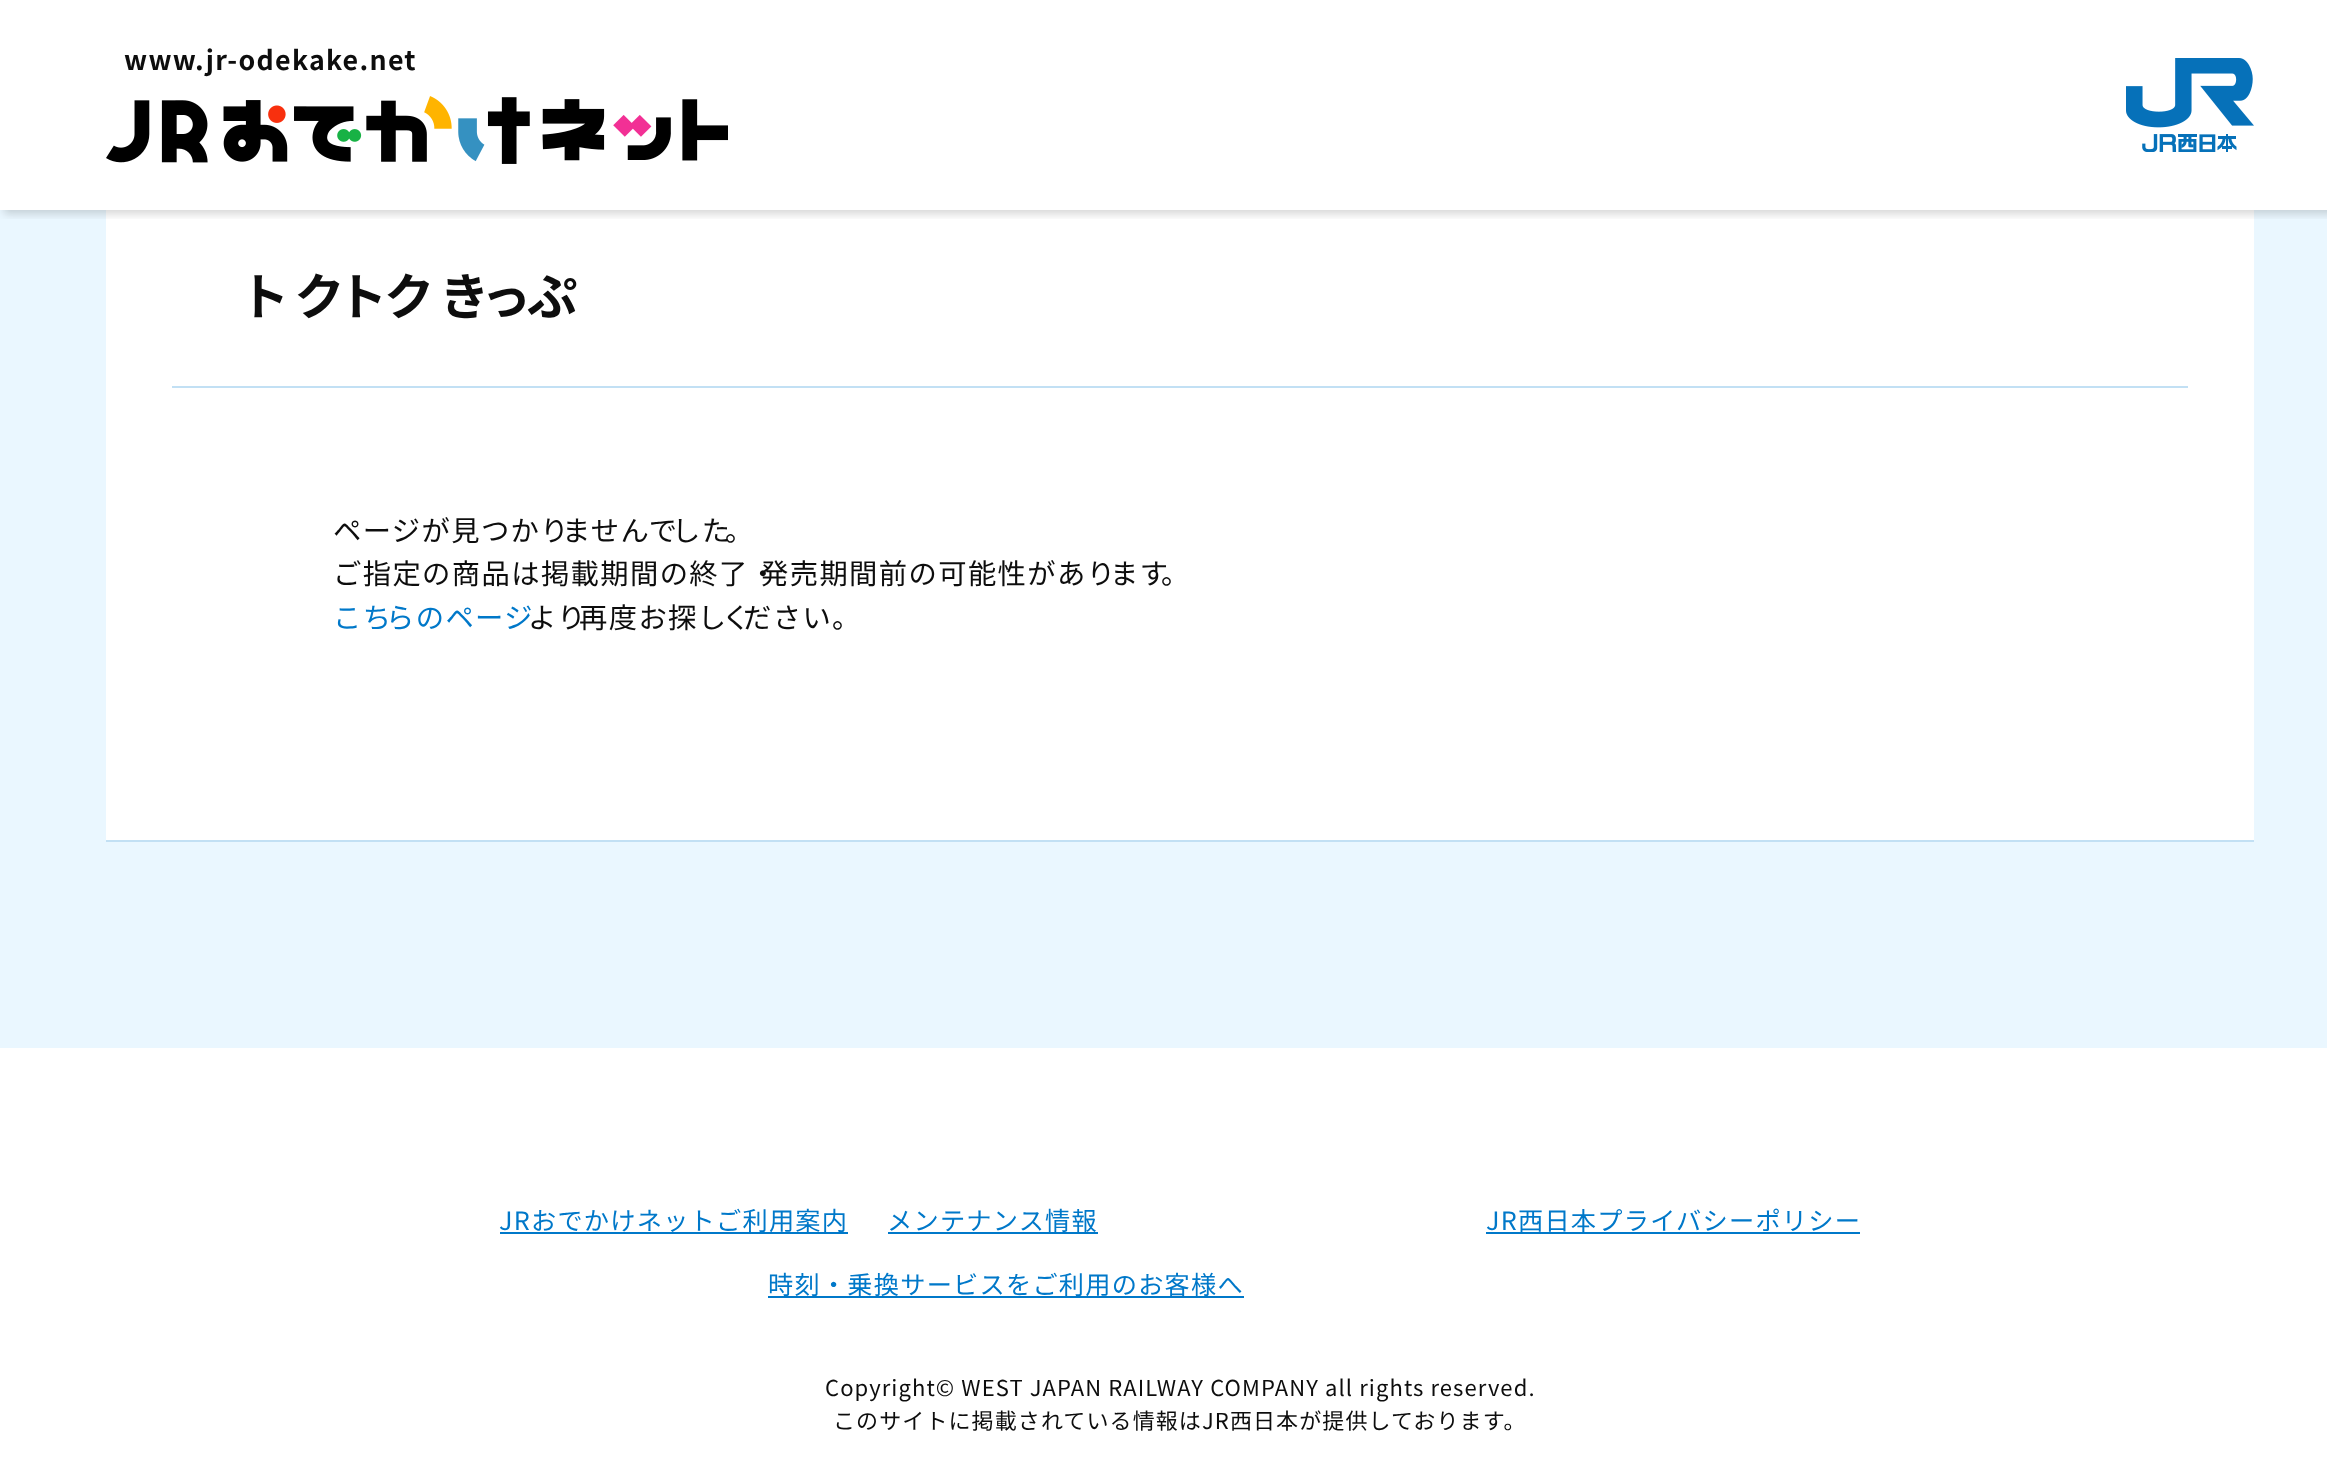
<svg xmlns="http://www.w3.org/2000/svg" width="2327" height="1472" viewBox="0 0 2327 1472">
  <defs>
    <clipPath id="clip1"><rect x="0" y="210" width="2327" height="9"/></clipPath>
    <filter id="blur1" x="-50%" y="-200%" width="200%" height="500%"><feGaussianBlur stdDeviation="4"/></filter>
  </defs>
  <rect width="100%" height="100%" fill="#ffffff"/>
  <rect x="0" y="210" width="2327" height="838" fill="#eaf7ff"/>
  <rect x="106" y="210" width="2148" height="630" fill="#ffffff"/>
  <g clip-path="url(#clip1)">
    <rect x="4" y="4" width="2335" height="210" fill="#000000" fill-opacity="0.16" filter="url(#blur1)"/>
  </g>
  <text x="124" y="70" font-family="Noto Sans JP" font-size="26.75" font-weight="bold" letter-spacing="1.3" fill="#0d0d0d">www.jr-odekake.net</text>
  <image x="106" y="96" width="622" height="68" href="img1.png"/>
  <image x="2126" y="58" width="128" height="94" href="img2.png"/>
  <rect x="106" y="840" width="2148" height="2" fill="#c2e0f4"/>
  <rect x="172" y="386" width="2016" height="2" fill="#c2e0f4"/>
  <text x="239" y="315" font-family="Noto Sans JP" font-size="50.25" font-weight="bold" letter-spacing="5" fill="#0d0d0d">トク</text>
  <text x="337" y="315" font-family="Noto Sans JP" font-size="50.25" font-weight="bold" letter-spacing="5" fill="#0d0d0d">ト</text>
  <text x="384" y="315" font-family="Noto Sans JP" font-size="50.25" font-weight="bold" letter-spacing="5" fill="#0d0d0d">クき</text>
  <text x="481" y="315" font-family="Noto Sans JP" font-size="50.25" font-weight="bold" letter-spacing="5" fill="#0d0d0d">っ</text>
  <text x="527" y="315" font-family="Noto Sans JP" font-size="50.25" font-weight="bold" letter-spacing="5" fill="#0d0d0d">ぷ</text>
  <text x="333" y="541" font-family="Noto Sans JP" font-size="28.3" letter-spacing="1.4" fill="#0d0d0d">ページが見つかり</text>
  <text x="562" y="541" font-family="Noto Sans JP" font-size="28.3" letter-spacing="1.4" fill="#0d0d0d">ませんで</text>
  <text x="672" y="541" font-family="Noto Sans JP" font-size="28.3" letter-spacing="1.4" fill="#0d0d0d">した</text>
  <text x="725" y="541" font-family="Noto Sans JP" font-size="28.3" letter-spacing="1.4" fill="#0d0d0d">。</text>
  <text x="333" y="584" font-family="Noto Sans JP" font-size="28.3" letter-spacing="1.4" fill="#0d0d0d">ご指定の商品は掲載期間の終了・</text>
  <text x="760" y="584" font-family="Noto Sans JP" font-size="28.3" letter-spacing="1.4" fill="#0d0d0d">発売期間前の可能性があり</text>
  <text x="1110" y="584" font-family="Noto Sans JP" font-size="28.3" letter-spacing="1.4" fill="#0d0d0d">ます</text>
  <text x="1161" y="584" font-family="Noto Sans JP" font-size="28.3" letter-spacing="1.4" fill="#0d0d0d">。</text>
  <text x="333" y="628" font-family="Noto Sans JP" font-size="28.3" letter-spacing="1.4" fill="#0078c9">こち</text>
  <text x="386" y="628" font-family="Noto Sans JP" font-size="28.3" letter-spacing="1.4" fill="#0078c9">らのページ</text>
  <text x="528" y="628" font-family="Noto Sans JP" font-size="28.3" letter-spacing="1.4" fill="#0d0d0d">より</text>
  <text x="579" y="628" font-family="Noto Sans JP" font-size="28.3" letter-spacing="1.4" fill="#0d0d0d">再度お探し</text>
  <text x="722" y="628" font-family="Noto Sans JP" font-size="28.3" letter-spacing="1.4" fill="#0d0d0d">く</text>
  <text x="743" y="628" font-family="Noto Sans JP" font-size="28.3" letter-spacing="1.4" fill="#0d0d0d">ださい。</text>
  <rect x="500" y="1232" width="348" height="2" fill="#0078c9"/>
  <text x="499" y="1230" font-family="Noto Sans JP" font-size="25.2" letter-spacing="1.25" fill="#0078c9">JRおでかけネットご利用案内</text>
  <rect x="888" y="1232" width="210" height="2" fill="#0078c9"/>
  <text x="887" y="1230" font-family="Noto Sans JP" font-size="25.2" letter-spacing="1.25" fill="#0078c9">メンテナンス情報</text>
  <text x="1486" y="1230" font-family="Noto Sans JP" font-size="25.2" letter-spacing="1.25" fill="#0078c9">JR西日本プライバシーポリシー</text>
  <rect x="1486" y="1232" width="374" height="2" fill="#0078c9"/>
  <rect x="768" y="1296" width="476" height="2" fill="#0078c9"/>
  <text x="768" y="1294" font-family="Noto Sans JP" font-size="25.2" letter-spacing="1.25" fill="#0078c9">時刻・乗換サービスをご利用のお客様へ</text>
  <text x="825" y="1396" font-family="Noto Sans JP" font-size="22" letter-spacing="1.1" fill="#0d0d0d">Copyright© WEST JAPAN RAILWAY COMPANY all rights reserved.</text>
  <text x="833" y="1429" font-family="Noto Sans JP" font-size="22" letter-spacing="1.1" fill="#0d0d0d">このサイトに掲載されている情報はJR西日本が提供しております。</text>
</svg>
